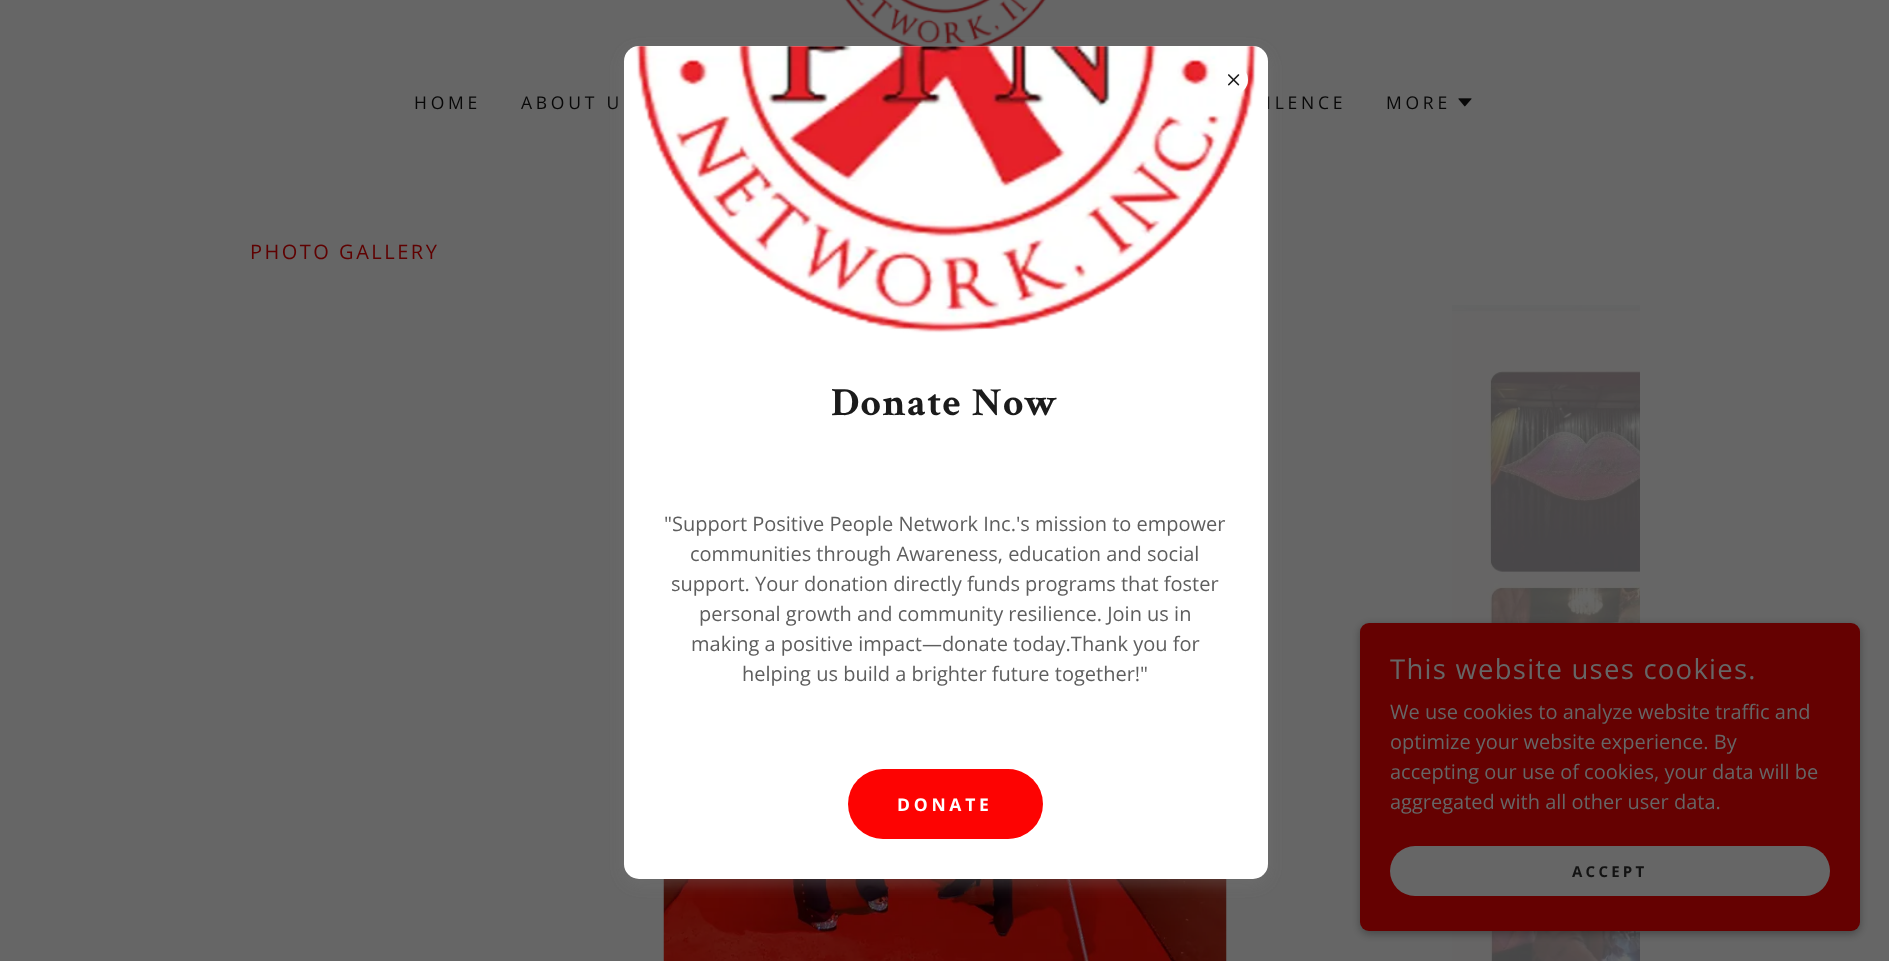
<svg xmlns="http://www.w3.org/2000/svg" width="1889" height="961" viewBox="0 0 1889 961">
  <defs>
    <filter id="blur1" x="-50%" y="-200%" width="200%" height="500%"><feGaussianBlur stdDeviation="7.5"/></filter>
    <filter id="blur2" x="-50%" y="-200%" width="200%" height="500%"><feGaussianBlur stdDeviation="4"/></filter>
  </defs>
  <rect width="100%" height="100%" fill="#666666"/>
  <image x="844" y="0" width="202" height="46" href="img1.png"/>
  <text x="414" y="109" font-family="Open Sans" font-size="17.5" letter-spacing="3.75" fill="#080808">HOME</text>
  <text x="521" y="109" font-family="Open Sans" font-size="17.5" letter-spacing="3.75" fill="#080808">ABOUT U</text>
  <text x="1266" y="109" font-family="Open Sans" font-size="17.5" letter-spacing="3.75" fill="#080808">ILENCE</text>
  <text x="1386" y="109" font-family="Open Sans" font-size="17.5" letter-spacing="3.75" fill="#080808">MORE</text>
  <image x="1458" y="98" width="14" height="9" href="img2.png"/>
  <text x="250" y="259" font-family="Open Sans" font-size="20" letter-spacing="2.5" fill="#5f0101">PHOTO GALLERY</text>
  <image x="663" y="879" width="564" height="82" href="img3.png"/>
  <image x="1452" y="305" width="188" height="656" href="img4.png"/>
  <rect x="624" y="51" width="644" height="833" rx="15" fill="#757575" fill-opacity="0.4" filter="url(#blur1)"/>
  <rect x="624" y="46" width="644" height="833" rx="15" fill="#ffffff"/>
  <image x="635" y="46" width="622" height="287" href="img6.png"/>
  <circle cx="1234" cy="80" r="14" fill="#ffffff"/>
  <image x="1228" y="74" width="12" height="12" href="img5.png"/>
  <text x="831" y="415" font-family="Crimson Text" font-size="40" font-weight="bold" letter-spacing="1.25" fill="#1b1b1b">Donate Now</text>
  <text x="664" y="531" font-family="Open Sans" font-size="20" fill="#5e5e5e">"Support Positive People Network Inc.'s mission to empower</text>
  <text x="690" y="561" font-family="Open Sans" font-size="20" fill="#5e5e5e">communities through Awareness, education and social</text>
  <text x="671" y="591" font-family="Open Sans" font-size="20" fill="#5e5e5e">support. Your donation directly funds programs that foster</text>
  <text x="699" y="621" font-family="Open Sans" font-size="20" fill="#5e5e5e">personal growth and community resilience. Join us in</text>
  <text x="691" y="651" font-family="Open Sans" font-size="20" fill="#5e5e5e">making a positive impact—donate today.Thank you for</text>
  <text x="742" y="681" font-family="Open Sans" font-size="20" fill="#5e5e5e">helping us build a brighter future together!"</text>
  <rect x="848" y="769" width="195" height="70" rx="35" fill="#fd0302"/>
  <text x="897" y="811" font-family="Open Sans" font-size="17.5" font-weight="bold" letter-spacing="3.75" fill="#ffffff">DONATE</text>
  <rect x="1360" y="625" width="500" height="309" rx="9" fill="#000000" fill-opacity="0.3" filter="url(#blur2)"/>
  <rect x="1360" y="623" width="500" height="308" rx="9" fill="#650101"/>
  <text x="1390" y="679" font-family="Open Sans" font-size="27.5" letter-spacing="1.25" fill="#666666">This website uses cookies.</text>
  <text x="1390" y="719" font-family="Open Sans" font-size="20" fill="#666666">We use cookies to analyze website traffic and</text>
  <text x="1390" y="749" font-family="Open Sans" font-size="20" fill="#666666">optimize your website experience. By</text>
  <text x="1390" y="779" font-family="Open Sans" font-size="20" fill="#666666">accepting our use of cookies, your data will be</text>
  <text x="1390" y="809" font-family="Open Sans" font-size="20" fill="#666666">aggregated with all other user data.</text>
  <rect x="1390" y="846" width="440" height="50" rx="25" fill="#666666"/>
  <text x="1572" y="877" font-family="Open Sans" font-size="15" font-weight="bold" letter-spacing="3.25" fill="#131313">ACCEPT</text>
</svg>
